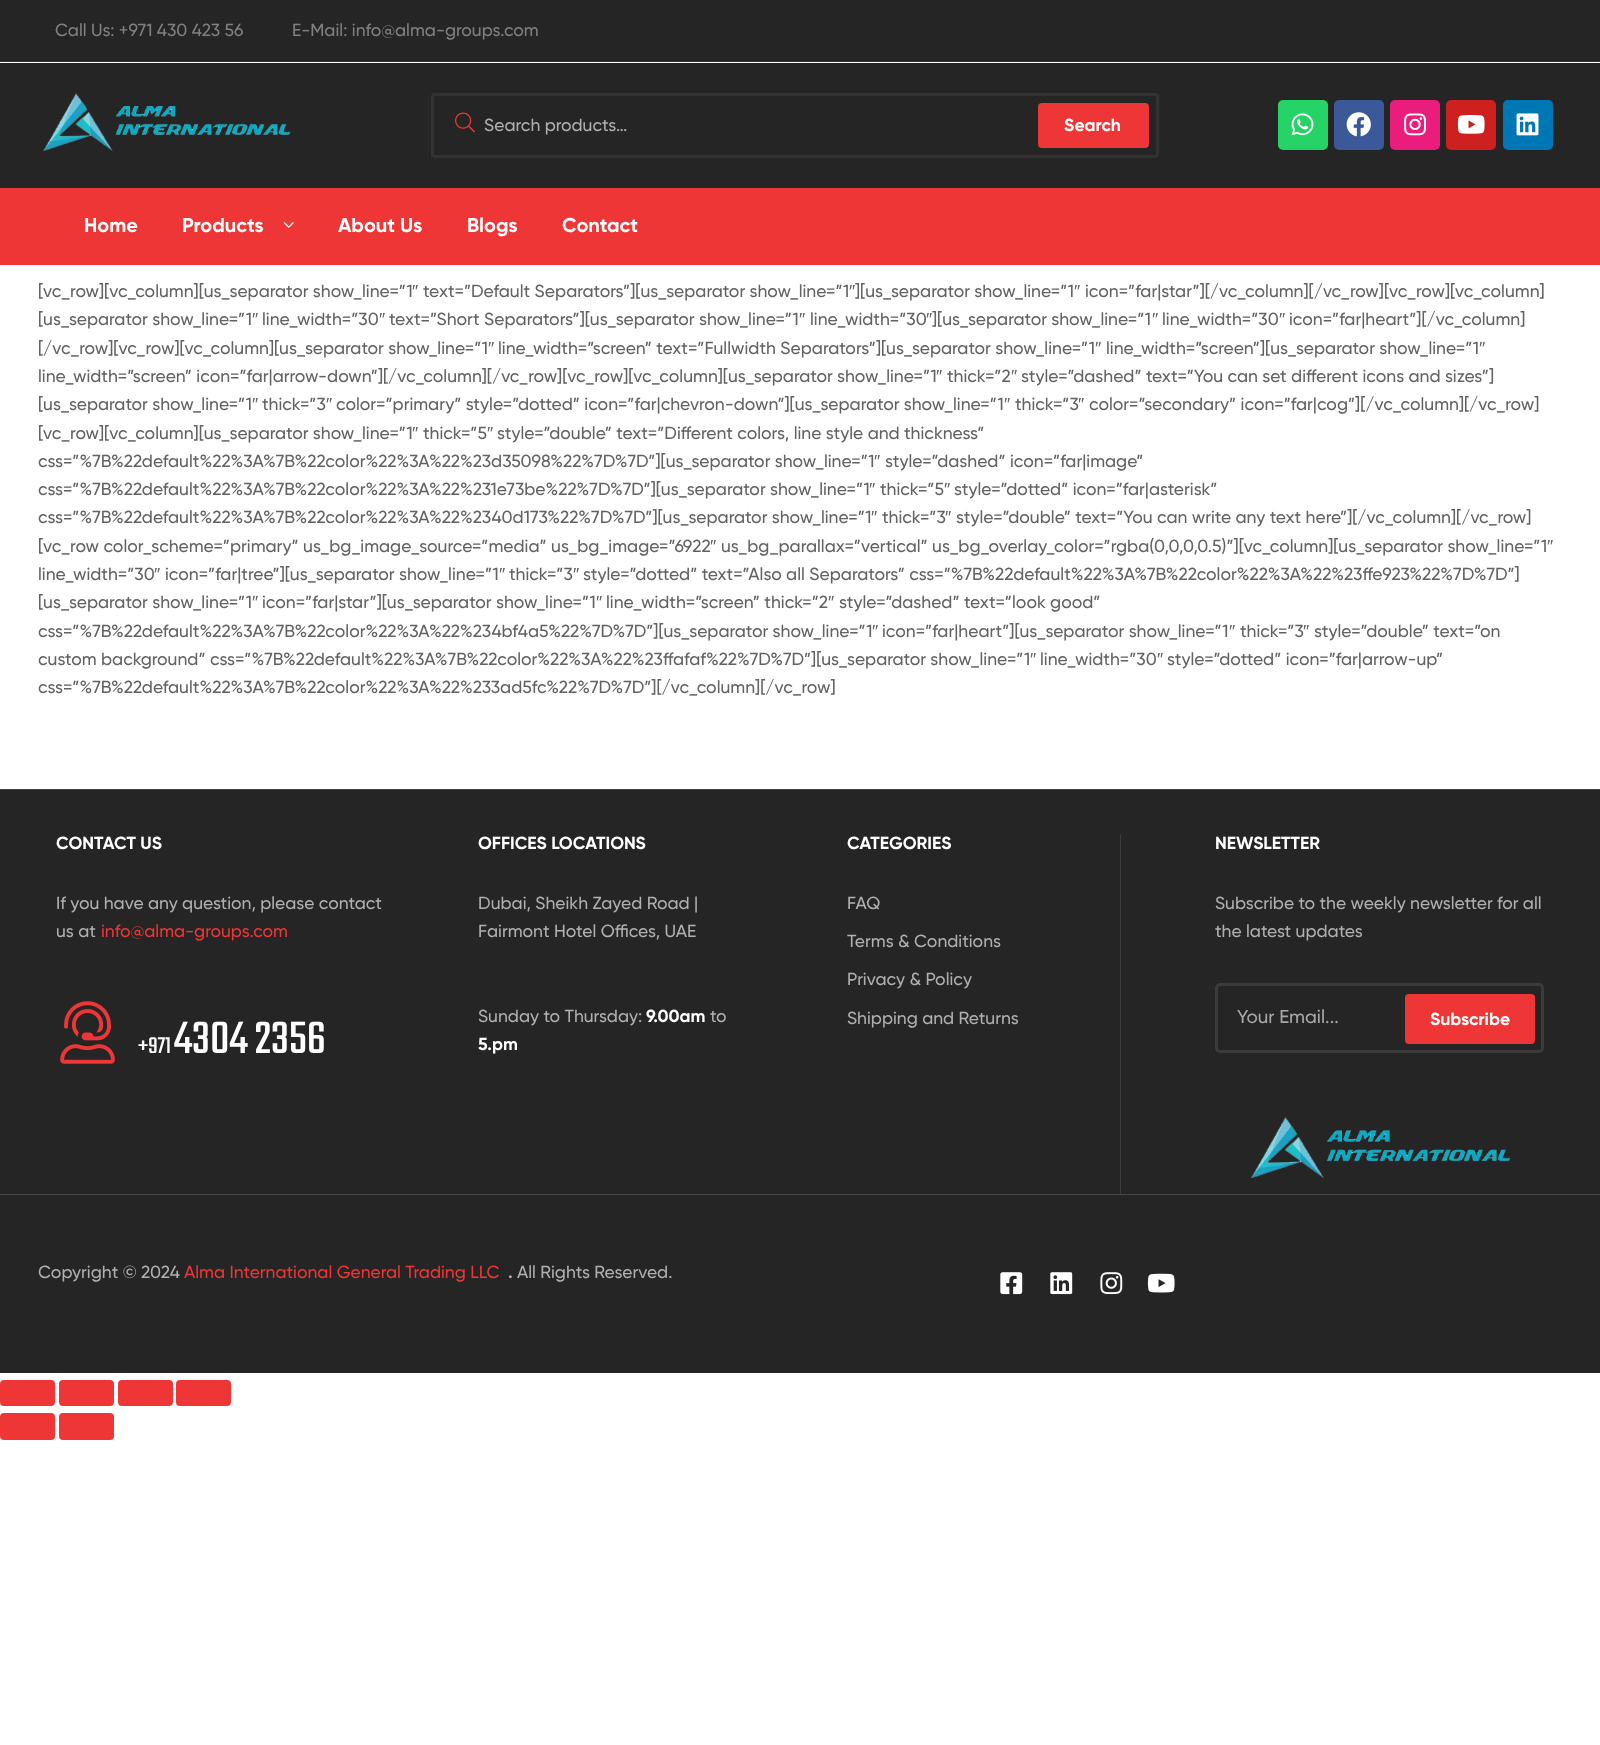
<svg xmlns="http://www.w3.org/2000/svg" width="1600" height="1745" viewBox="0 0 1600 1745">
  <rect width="100%" height="100%" fill="#ffffff"/>
  <rect x="0" y="0" width="1600" height="61" fill="#252525"/>
  <rect x="0" y="61" width="1600" height="1" fill="#313131"/>
  <text x="55" y="36" font-family="Gilroy" font-size="17.5" font-weight="500" fill="#808080">Call Us: +971 430 423 56</text>
  <text x="292" y="36" font-family="Gilroy" font-size="17.5" font-weight="500" fill="#808080">E-Mail: info@alma-groups.com</text>
  <rect x="0" y="63" width="1600" height="125" fill="#252525"/>
  <image x="43" y="93" width="248" height="58" href="img1.png"/>
  <rect x="432.5" y="94.5" width="725" height="62" rx="2.5" fill="none" stroke="#323232" stroke-width="3"/>
  <image x="455" y="112" width="20" height="21" href="img2.png"/>
  <text x="484" y="131" font-family="Gilroy" font-size="17.5" font-weight="500" fill="#b0b0b0">Search products…</text>
  <rect x="1039.5" y="104.5" width="108" height="42" rx="2.5" fill="#ef3636" stroke="#ef3636" stroke-width="3"/>
  <text x="1064" y="131" font-family="Gilroy" font-size="17.5" font-weight="bold" fill="#ffffff">Search</text>
  <rect x="1278" y="100" width="50" height="50" rx="5" fill="#25d366"/>
  <image x="1291" y="113" width="23" height="23" href="img3.png"/>
  <rect x="1334" y="100" width="50" height="50" rx="5" fill="#3b5998"/>
  <image x="1346" y="112" width="25" height="25" href="img4.png"/>
  <rect x="1390" y="100" width="50" height="50" rx="5" fill="#ea1d7d"/>
  <image x="1404" y="113" width="22" height="23" href="img5.png"/>
  <rect x="1446" y="100" width="50" height="50" rx="5" fill="#cd201f"/>
  <image x="1457" y="115" width="28" height="19" href="img6.png"/>
  <rect x="1503" y="100" width="50" height="50" rx="5" fill="#0077b5"/>
  <image x="1516" y="113" width="23" height="23" href="img7.png"/>
  <rect x="0" y="188" width="1600" height="77" fill="#ef3636"/>
  <text x="84" y="232" font-family="Gilroy" font-size="20" font-weight="bold" fill="#ffffff">Home</text>
  <text x="182" y="232" font-family="Gilroy" font-size="20" font-weight="bold" fill="#ffffff">Products</text>
  <image x="283" y="222" width="11" height="6" href="img8.png"/>
  <text x="338" y="232" font-family="Gilroy" font-size="20" font-weight="bold" fill="#ffffff">About Us</text>
  <text x="467" y="232" font-family="Gilroy" font-size="20" font-weight="bold" fill="#ffffff">Blogs</text>
  <text x="562" y="232" font-family="Gilroy" font-size="20" font-weight="bold" fill="#ffffff">Contact</text>
  <text x="38" y="297" font-family="Gilroy" font-size="17.5" font-weight="500" fill="#626262">[vc_row][vc_column][us_separator show_line=”1</text>
  <text x="412" y="297" font-family="Liberation Sans" font-size="17.5" fill="#626262">″</text>
  <text x="423" y="297" font-family="Gilroy" font-size="17.5" font-weight="500" fill="#626262">text=”Default Separators”][us_separator show_line=”1</text>
  <text x="849" y="297" font-family="Liberation Sans" font-size="17.5" fill="#626262">″</text>
  <text x="855" y="297" font-family="Gilroy" font-size="17.5" font-weight="500" fill="#626262">][us_separator show_line=”1</text>
  <text x="1074" y="297" font-family="Liberation Sans" font-size="17.5" fill="#626262">″</text>
  <text x="1085" y="297" font-family="Gilroy" font-size="17.5" font-weight="500" fill="#626262">icon=”far|star”][/vc_column][/vc_row][vc_row][vc_column]</text>
  <text x="38" y="325" font-family="Gilroy" font-size="17.5" font-weight="500" fill="#626262">[us_separator show_line=”1</text>
  <text x="252" y="325" font-family="Liberation Sans" font-size="17.5" fill="#626262">″</text>
  <text x="262" y="325" font-family="Gilroy" font-size="17.5" font-weight="500" fill="#626262">line_width=”30</text>
  <text x="379" y="325" font-family="Liberation Sans" font-size="17.5" fill="#626262">″</text>
  <text x="389" y="325" font-family="Gilroy" font-size="17.5" font-weight="500" fill="#626262">text=”Short Separators”][us_separator show_line=”1</text>
  <text x="799" y="325" font-family="Liberation Sans" font-size="17.5" fill="#626262">″</text>
  <text x="810" y="325" font-family="Gilroy" font-size="17.5" font-weight="500" fill="#626262">line_width=”30</text>
  <text x="926" y="325" font-family="Liberation Sans" font-size="17.5" fill="#626262">″</text>
  <text x="932" y="325" font-family="Gilroy" font-size="17.5" font-weight="500" fill="#626262">][us_separator show_line=”1</text>
  <text x="1152" y="325" font-family="Liberation Sans" font-size="17.5" fill="#626262">″</text>
  <text x="1162" y="325" font-family="Gilroy" font-size="17.5" font-weight="500" fill="#626262">line_width=”30</text>
  <text x="1279" y="325" font-family="Liberation Sans" font-size="17.5" fill="#626262">″</text>
  <text x="1289" y="325" font-family="Gilroy" font-size="17.5" font-weight="500" fill="#626262">icon=”far|heart”][/vc_column]</text>
  <text x="38" y="354" font-family="Gilroy" font-size="17.5" font-weight="500" fill="#626262">[/vc_row][vc_row][vc_column][us_separator show_line=”1</text>
  <text x="488" y="354" font-family="Liberation Sans" font-size="17.5" fill="#626262">″</text>
  <text x="498" y="354" font-family="Gilroy" font-size="17.5" font-weight="500" fill="#626262">line_width=”screen” text=”Fullwidth Separators”][us_separator show_line=”1</text>
  <text x="1095" y="354" font-family="Liberation Sans" font-size="17.5" fill="#626262">″</text>
  <text x="1106" y="354" font-family="Gilroy" font-size="17.5" font-weight="500" fill="#626262">line_width=”screen”][us_separator show_line=”1</text>
  <text x="1479" y="354" font-family="Liberation Sans" font-size="17.5" fill="#626262">″</text>
  <text x="38" y="382" font-family="Gilroy" font-size="17.5" font-weight="500" fill="#626262">line_width=”screen” icon=”far|arrow-down”][/vc_column][/vc_row][vc_row][vc_column][us_separator show_line=”1</text>
  <text x="936" y="382" font-family="Liberation Sans" font-size="17.5" fill="#626262">″</text>
  <text x="947" y="382" font-family="Gilroy" font-size="17.5" font-weight="500" fill="#626262">thick=”2</text>
  <text x="1011" y="382" font-family="Liberation Sans" font-size="17.5" fill="#626262">″</text>
  <text x="1021" y="382" font-family="Gilroy" font-size="17.5" font-weight="500" fill="#626262">style=”dashed” text=”You can set different icons and sizes”]</text>
  <text x="38" y="410" font-family="Gilroy" font-size="17.5" font-weight="500" fill="#626262">[us_separator show_line=”1</text>
  <text x="252" y="410" font-family="Liberation Sans" font-size="17.5" fill="#626262">″</text>
  <text x="262" y="410" font-family="Gilroy" font-size="17.5" font-weight="500" fill="#626262">thick=”3</text>
  <text x="326" y="410" font-family="Liberation Sans" font-size="17.5" fill="#626262">″</text>
  <text x="336" y="410" font-family="Gilroy" font-size="17.5" font-weight="500" fill="#626262">color=”primary” style=”dotted” icon=”far|chevron-down”][us_separator show_line=”1</text>
  <text x="1004" y="410" font-family="Liberation Sans" font-size="17.5" fill="#626262">″</text>
  <text x="1015" y="410" font-family="Gilroy" font-size="17.5" font-weight="500" fill="#626262">thick=”3</text>
  <text x="1078" y="410" font-family="Liberation Sans" font-size="17.5" fill="#626262">″</text>
  <text x="1089" y="410" font-family="Gilroy" font-size="17.5" font-weight="500" fill="#626262">color=”secondary” icon=”far|cog”][/vc_column][/vc_row]</text>
  <text x="38" y="439" font-family="Gilroy" font-size="17.5" font-weight="500" fill="#626262">[vc_row][vc_column][us_separator show_line=”1</text>
  <text x="412" y="439" font-family="Liberation Sans" font-size="17.5" fill="#626262">″</text>
  <text x="423" y="439" font-family="Gilroy" font-size="17.5" font-weight="500" fill="#626262">thick=”5</text>
  <text x="487" y="439" font-family="Liberation Sans" font-size="17.5" fill="#626262">″</text>
  <text x="497" y="439" font-family="Gilroy" font-size="17.5" font-weight="500" fill="#626262">style=”double” text=”Different colors, line style and thickness”</text>
  <text x="38" y="467" font-family="Gilroy" font-size="17.5" font-weight="500" fill="#626262">css=”%7B%22default%22%3A%7B%22color%22%3A%22%23d35098%22%7D%7D”][us_separator show_line=”1</text>
  <text x="874" y="467" font-family="Liberation Sans" font-size="17.5" fill="#626262">″</text>
  <text x="885" y="467" font-family="Gilroy" font-size="17.5" font-weight="500" fill="#626262">style=”dashed” icon=”far|image”</text>
  <text x="38" y="495" font-family="Gilroy" font-size="17.5" font-weight="500" fill="#626262">css=”%7B%22default%22%3A%7B%22color%22%3A%22%231e73be%22%7D%7D”][us_separator show_line=”1</text>
  <text x="869" y="495" font-family="Liberation Sans" font-size="17.5" fill="#626262">″</text>
  <text x="880" y="495" font-family="Gilroy" font-size="17.5" font-weight="500" fill="#626262">thick=”5</text>
  <text x="944" y="495" font-family="Liberation Sans" font-size="17.5" fill="#626262">″</text>
  <text x="954" y="495" font-family="Gilroy" font-size="17.5" font-weight="500" fill="#626262">style=”dotted” icon=”far|asterisk”</text>
  <text x="38" y="523" font-family="Gilroy" font-size="17.5" font-weight="500" fill="#626262">css=”%7B%22default%22%3A%7B%22color%22%3A%22%2340d173%22%7D%7D”][us_separator show_line=”1</text>
  <text x="871" y="523" font-family="Liberation Sans" font-size="17.5" fill="#626262">″</text>
  <text x="882" y="523" font-family="Gilroy" font-size="17.5" font-weight="500" fill="#626262">thick=”3</text>
  <text x="945" y="523" font-family="Liberation Sans" font-size="17.5" fill="#626262">″</text>
  <text x="956" y="523" font-family="Gilroy" font-size="17.5" font-weight="500" fill="#626262">style=”double” text=”You can write any text here”][/vc_column][/vc_row]</text>
  <text x="38" y="552" font-family="Gilroy" font-size="17.5" font-weight="500" fill="#626262">[vc_row color_scheme=”primary” us_bg_image_source=”media” us_bg_image=”6922</text>
  <text x="710" y="552" font-family="Liberation Sans" font-size="17.5" fill="#626262">″</text>
  <text x="721" y="552" font-family="Gilroy" font-size="17.5" font-weight="500" fill="#626262">us_bg_parallax=”vertical” us_bg_overlay_color=”rgba(0,0,0,0.5)”][vc_column][us_separator show_line=”1</text>
  <text x="1547" y="552" font-family="Liberation Sans" font-size="17.5" fill="#626262">″</text>
  <text x="38" y="580" font-family="Gilroy" font-size="17.5" font-weight="500" fill="#626262">line_width=”30</text>
  <text x="154" y="580" font-family="Liberation Sans" font-size="17.5" fill="#626262">″</text>
  <text x="165" y="580" font-family="Gilroy" font-size="17.5" font-weight="500" fill="#626262">icon=”far|tree”][us_separator show_line=”1</text>
  <text x="499" y="580" font-family="Liberation Sans" font-size="17.5" fill="#626262">″</text>
  <text x="509" y="580" font-family="Gilroy" font-size="17.5" font-weight="500" fill="#626262">thick=”3</text>
  <text x="573" y="580" font-family="Liberation Sans" font-size="17.5" fill="#626262">″</text>
  <text x="583" y="580" font-family="Gilroy" font-size="17.5" font-weight="500" fill="#626262">style=”dotted” text=”Also all Separators” css=”%7B%22default%22%3A%7B%22color%22%3A%22%23ffe923%22%7D%7D”]</text>
  <text x="38" y="608" font-family="Gilroy" font-size="17.5" font-weight="500" fill="#626262">[us_separator show_line=”1</text>
  <text x="252" y="608" font-family="Liberation Sans" font-size="17.5" fill="#626262">″</text>
  <text x="262" y="608" font-family="Gilroy" font-size="17.5" font-weight="500" fill="#626262">icon=”far|star”][us_separator show_line=”1</text>
  <text x="596" y="608" font-family="Liberation Sans" font-size="17.5" fill="#626262">″</text>
  <text x="606" y="608" font-family="Gilroy" font-size="17.5" font-weight="500" fill="#626262">line_width=”screen” thick=”2</text>
  <text x="828" y="608" font-family="Liberation Sans" font-size="17.5" fill="#626262">″</text>
  <text x="839" y="608" font-family="Gilroy" font-size="17.5" font-weight="500" fill="#626262">style=”dashed” text=”look good”</text>
  <text x="38" y="637" font-family="Gilroy" font-size="17.5" font-weight="500" fill="#626262">css=”%7B%22default%22%3A%7B%22color%22%3A%22%234bf4a5%22%7D%7D”][us_separator show_line=”1</text>
  <text x="872" y="637" font-family="Liberation Sans" font-size="17.5" fill="#626262">″</text>
  <text x="882" y="637" font-family="Gilroy" font-size="17.5" font-weight="500" fill="#626262">icon=”far|heart”][us_separator show_line=”1</text>
  <text x="1229" y="637" font-family="Liberation Sans" font-size="17.5" fill="#626262">″</text>
  <text x="1240" y="637" font-family="Gilroy" font-size="17.5" font-weight="500" fill="#626262">thick=”3</text>
  <text x="1303" y="637" font-family="Liberation Sans" font-size="17.5" fill="#626262">″</text>
  <text x="1314" y="637" font-family="Gilroy" font-size="17.5" font-weight="500" fill="#626262">style=”double” text=”on</text>
  <text x="38" y="665" font-family="Gilroy" font-size="17.5" font-weight="500" fill="#626262">custom background” css=”%7B%22default%22%3A%7B%22color%22%3A%22%23ffafaf%22%7D%7D”][us_separator show_line=”1</text>
  <text x="1030" y="665" font-family="Liberation Sans" font-size="17.5" fill="#626262">″</text>
  <text x="1040" y="665" font-family="Gilroy" font-size="17.5" font-weight="500" fill="#626262">line_width=”30</text>
  <text x="1157" y="665" font-family="Liberation Sans" font-size="17.5" fill="#626262">″</text>
  <text x="1167" y="665" font-family="Gilroy" font-size="17.5" font-weight="500" fill="#626262">style=”dotted” icon=”far|arrow-up”</text>
  <text x="38" y="693" font-family="Gilroy" font-size="17.5" font-weight="500" fill="#626262">css=”%7B%22default%22%3A%7B%22color%22%3A%22%233ad5fc%22%7D%7D”][/vc_column][/vc_row]</text>
  <rect x="0" y="790" width="1600" height="404" fill="#252525"/>
  <rect x="0" y="789" width="1600" height="1" fill="#464646"/>
  <text x="56" y="849" font-family="Gilroy" font-size="17.5" font-weight="bold" fill="#ffffff">CONTACT US</text>
  <text x="56" y="909" font-family="Gilroy" font-size="17.5" font-weight="500" fill="#b0b0b0">If you have any question, please contact</text>
  <text x="56" y="937" font-family="Gilroy" font-size="17.5" font-weight="500" fill="#b0b0b0">us at</text>
  <text x="101" y="937" font-family="Gilroy" font-size="17.5" font-weight="500" fill="#ef3636">info@alma-groups.com</text>
  <image x="60" y="1001" width="55" height="63" href="img9.png"/>
  <text x="138" y="1053" font-family="Teko" font-size="25" fill="#ffffff">+971</text>
  <text x="174" y="1053" font-family="Teko" font-size="50" fill="#ffffff">4304 2356</text>
  <text x="478" y="849" font-family="Gilroy" font-size="17.5" font-weight="bold" fill="#ffffff">OFFICES LOCATIONS</text>
  <text x="478" y="909" font-family="Gilroy" font-size="17.5" font-weight="500" fill="#b0b0b0">Dubai, Sheikh Zayed Road |</text>
  <text x="478" y="937" font-family="Gilroy" font-size="17.5" font-weight="500" fill="#b0b0b0">Fairmont Hotel Offices, UAE</text>
  <text x="478" y="1022" font-family="Gilroy" font-size="17.5" font-weight="500" fill="#b0b0b0">Sunday to Thursday:</text>
  <text x="646" y="1022" font-family="Gilroy" font-size="17.5" font-weight="bold" fill="#ffffff">9.00am</text>
  <text x="710" y="1022" font-family="Gilroy" font-size="17.5" font-weight="500" fill="#b0b0b0">to</text>
  <text x="478" y="1050" font-family="Gilroy" font-size="17.5" font-weight="bold" fill="#ffffff">5.pm</text>
  <text x="847" y="849" font-family="Gilroy" font-size="17.5" font-weight="bold" fill="#ffffff">CATEGORIES</text>
  <text x="847" y="909" font-family="Gilroy" font-size="17.5" font-weight="500" fill="#b0b0b0">FAQ</text>
  <text x="847" y="947" font-family="Gilroy" font-size="17.5" font-weight="500" fill="#b0b0b0">Terms &amp; Conditions</text>
  <text x="847" y="985" font-family="Gilroy" font-size="17.5" font-weight="500" fill="#b0b0b0">Privacy &amp; Policy</text>
  <text x="847" y="1024" font-family="Gilroy" font-size="17.5" font-weight="500" fill="#b0b0b0">Shipping and Returns</text>
  <rect x="1120" y="834" width="1" height="360" fill="#3b3b3b"/>
  <text x="1215" y="849" font-family="Gilroy" font-size="17.5" font-weight="bold" fill="#ffffff">NEWSLETTER</text>
  <text x="1215" y="909" font-family="Gilroy" font-size="17.5" font-weight="500" fill="#b0b0b0">Subscribe to the weekly newsletter for all</text>
  <text x="1215" y="937" font-family="Gilroy" font-size="17.5" font-weight="500" fill="#b0b0b0">the latest updates</text>
  <rect x="1216.5" y="984.5" width="326" height="67" rx="3.5" fill="none" stroke="#3b3b3b" stroke-width="3"/>
  <text x="1237" y="1023" font-family="Gilroy" font-size="18.75" font-weight="500" fill="#a8a8a8">Your Email...</text>
  <rect x="1405" y="994" width="130" height="50" rx="4" fill="#ef3636"/>
  <text x="1430" y="1025" font-family="Gilroy" font-size="17.5" font-weight="bold" fill="#ffffff">Subscribe</text>
  <image x="1250" y="1117" width="261" height="61" href="img10.png"/>
  <rect x="0" y="1195" width="1600" height="178" fill="#252525"/>
  <rect x="0" y="1194" width="1600" height="1" fill="#464646"/>
  <text x="38" y="1278" font-family="Gilroy" font-size="17.5" font-weight="500" fill="#b0b0b0">Copyright © 2024</text>
  <text x="184" y="1278" font-family="Gilroy" font-size="17.5" font-weight="500" fill="#ef3636">Alma International General Trading LLC</text>
  <text x="508" y="1278" font-family="Gilroy" font-size="17.5" font-weight="bold" fill="#b0b0b0">.</text>
  <text x="517" y="1278" font-family="Gilroy" font-size="17.5" font-weight="500" fill="#b0b0b0">All Rights Reserved.</text>
  <image x="1000" y="1272" width="23" height="23" href="img11.png"/>
  <image x="1050" y="1272" width="23" height="23" href="img12.png"/>
  <image x="1100" y="1272" width="23" height="23" href="img13.png"/>
  <image x="1147" y="1273" width="28" height="20" href="img14.png"/>
  <rect x="1.5" y="1381.5" width="52" height="23" rx="2.5" fill="#ef3636" stroke="#ef3636" stroke-width="3"/>
  <rect x="60.5" y="1381.5" width="52" height="23" rx="2.5" fill="#ef3636" stroke="#ef3636" stroke-width="3"/>
  <rect x="119.5" y="1381.5" width="52" height="23" rx="2.5" fill="#ef3636" stroke="#ef3636" stroke-width="3"/>
  <rect x="177.5" y="1381.5" width="52" height="23" rx="2.5" fill="#ef3636" stroke="#ef3636" stroke-width="3"/>
  <rect x="1.5" y="1414.5" width="52" height="24" rx="2.5" fill="#ef3636" stroke="#ef3636" stroke-width="3"/>
  <rect x="60.5" y="1414.5" width="52" height="24" rx="2.5" fill="#ef3636" stroke="#ef3636" stroke-width="3"/>
</svg>
